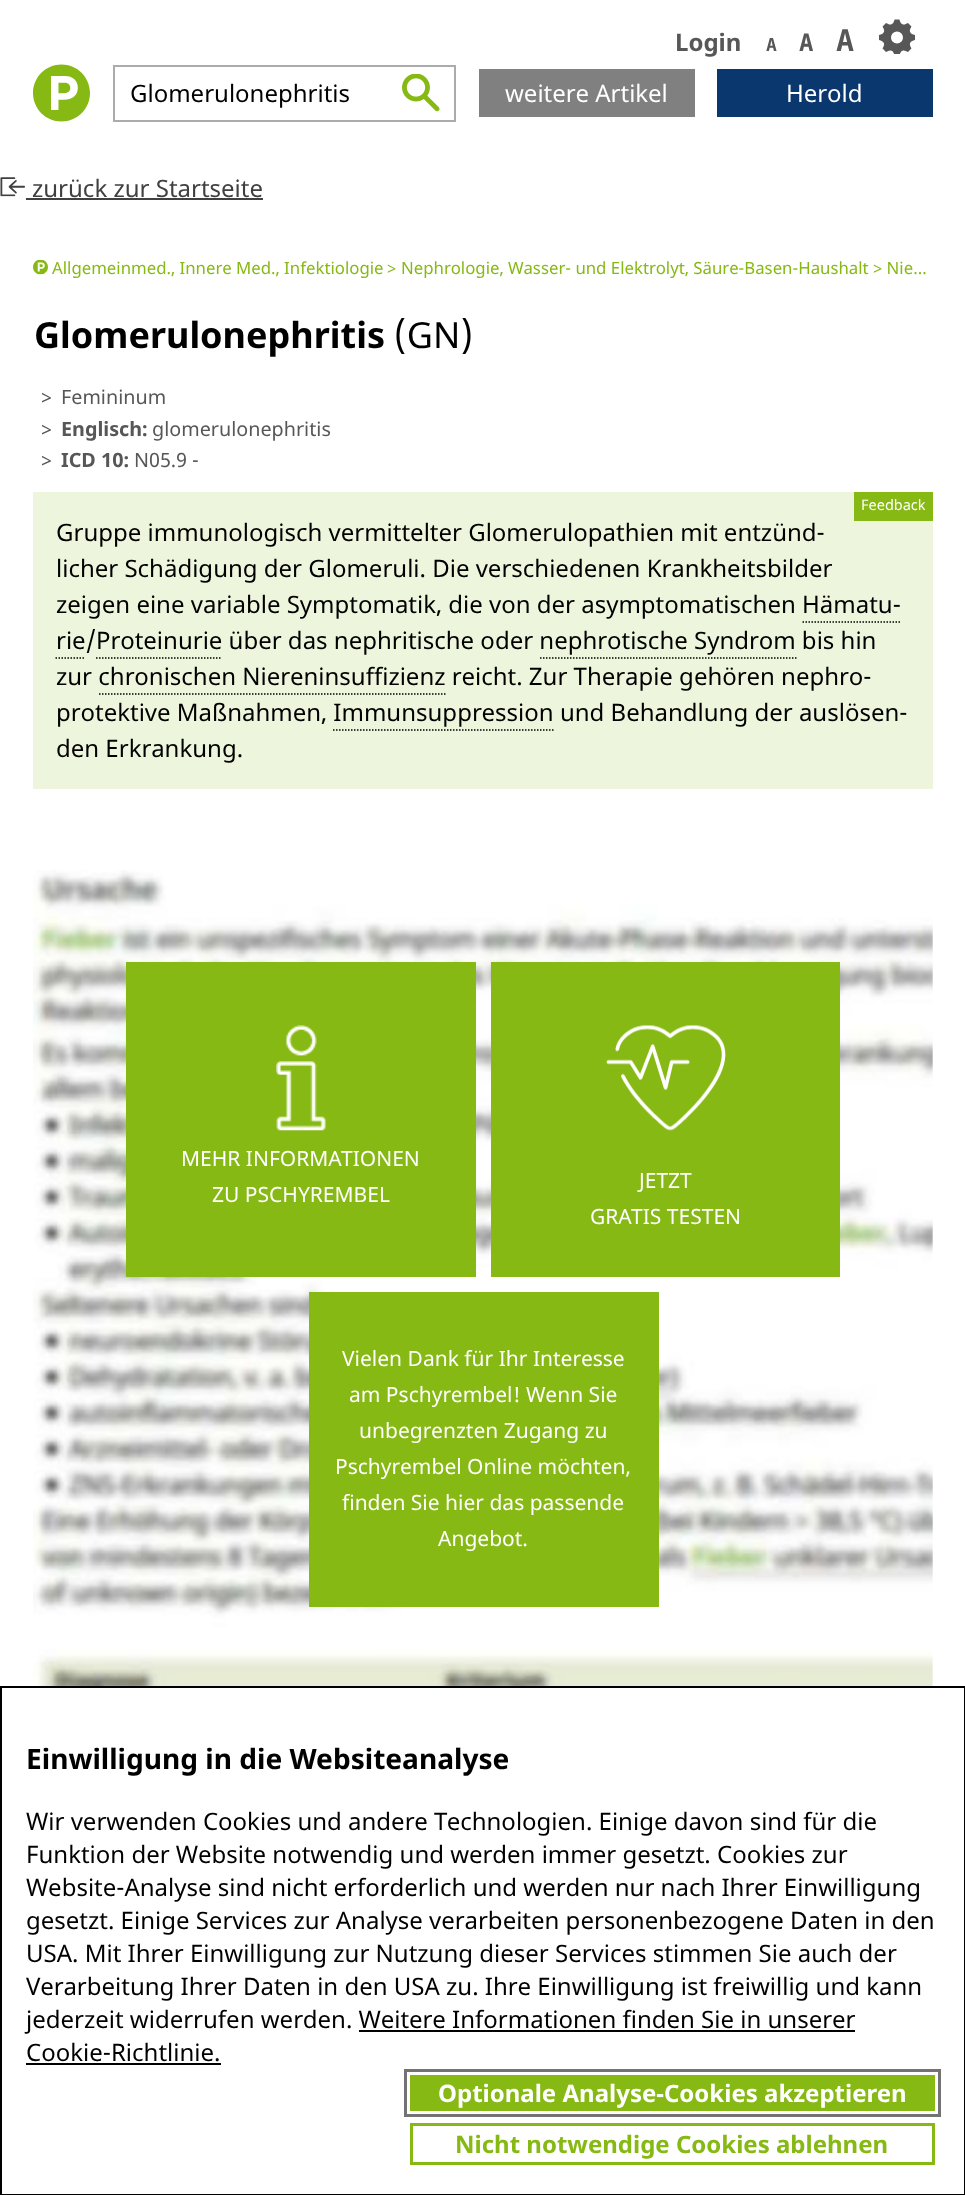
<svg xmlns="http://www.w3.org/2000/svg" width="965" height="2195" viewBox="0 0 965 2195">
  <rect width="100%" height="100%" fill="#ffffff"/>
  <text x="675" y="51" font-family="Noto Sans" font-size="24" font-weight="bold" fill="#575757">Login</text>
  <text x="766" y="51" font-family="DejaVu Sans Mono" font-size="18" font-weight="bold" fill="#575757">A</text>
  <text x="799" y="51" font-family="DejaVu Sans Mono" font-size="24" font-weight="bold" fill="#575757">A</text>
  <text x="836" y="51" font-family="DejaVu Sans Mono" font-size="30" font-weight="bold" fill="#575757">A</text>
  <image x="879" y="19" width="36" height="35" href="img1.png"/>
  <image x="33" y="64" width="57" height="58" href="img2.png"/>
  <image x="402" y="74" width="38" height="38" href="img3.png"/>
  <rect x="114" y="66" width="341" height="55" fill="none" stroke="#ababab" stroke-width="2"/>
  <text x="130" y="102" font-family="Noto Sans" font-size="24" fill="#000000">Glomerulonephritis</text>
  <rect x="479" y="69" width="216" height="48" fill="#808080"/>
  <text x="505" y="102" font-family="Noto Sans" font-size="24" fill="#ffffff">weitere Artikel</text>
  <rect x="717" y="69" width="216" height="48" fill="#0a376e"/>
  <text x="786" y="102" font-family="Noto Sans" font-size="24" fill="#ffffff">Herold</text>
  <image x="0" y="177" width="25" height="20" href="img4.png"/>
  <text x="32" y="197" font-family="Noto Sans" font-size="24" fill="#404040">zurück zur Startseite</text>
  <rect x="26" y="198" width="237" height="2" fill="#404040"/>
  <image x="33" y="260" width="15" height="15" href="img5.png"/>
  <text x="52" y="274" font-family="Noto Sans" font-size="16.8" fill="#87b914">Allgemeinmed., Innere Med., Infektiologie</text>
  <text x="387" y="274" font-family="Noto Sans" font-size="16.8" fill="#87b914">&gt;</text>
  <text x="401" y="274" font-family="Noto Sans" font-size="16.8" fill="#87b914">Nephrologie, Wasser- und Elektrolyt, Säure-Basen-Haushalt</text>
  <text x="873" y="274" font-family="Noto Sans" font-size="16.8" fill="#87b914">&gt; Nie...</text>
  <text x="34" y="348" font-family="Noto Sans" font-size="36" font-weight="bold" fill="#000000">Glomerulonephritis</text>
  <text x="394" y="348" font-family="Noto Sans" font-size="36" fill="#000000">(GN)</text>
  <text x="41" y="404" font-family="Noto Sans" font-size="19.75" fill="#575757">&gt;</text>
  <text x="61" y="404" font-family="Noto Sans" font-size="19.75" fill="#575757">Femininum</text>
  <text x="41" y="436" font-family="Noto Sans" font-size="19.75" fill="#575757">&gt;</text>
  <text x="61" y="436" font-family="Noto Sans" font-size="19.75" font-weight="bold" fill="#575757">Englisch:</text>
  <text x="152" y="436" font-family="Noto Sans" font-size="19.75" fill="#575757">glomerulonephritis</text>
  <text x="41" y="467" font-family="Noto Sans" font-size="19.75" fill="#575757">&gt;</text>
  <text x="61" y="467" font-family="Noto Sans" font-size="19.75" font-weight="bold" fill="#575757">ICD 10:</text>
  <text x="134" y="467" font-family="Noto Sans" font-size="19.75" fill="#575757">N05.9 -</text>
  <rect x="33" y="492" width="900" height="297" fill="#edf5dc"/>
  <rect x="854" y="492" width="79" height="29" fill="#87b914"/>
  <text x="861" y="510" font-family="Noto Sans" font-size="14.5" fill="#ffffff">Feedback</text>
  <text x="56" y="541" font-family="Noto Sans" font-size="24" fill="#000000">Gruppe immunologisch vermittelter Glomerulopathien mit entzünd-</text>
  <text x="56" y="577" font-family="Noto Sans" font-size="24" fill="#000000">licher Schädigung der Glomeruli. Die verschiedenen Krankheitsbilder</text>
  <text x="56" y="613" font-family="Noto Sans" font-size="24" fill="#000000">zeigen eine variable Symptomatik, die von der asymptomatischen Hämatu-</text>
  <text x="56" y="649" font-family="Noto Sans" font-size="24" fill="#000000">rie/Proteinurie über das nephritische oder nephrotische Syndrom bis hin</text>
  <path d="M802.5 622H892.5" fill="none" stroke="#000000" stroke-width="1.5" stroke-dasharray="1.5 1.5"/>
  <path d="M892.5 622H894M895.5 622H897M898.5 622H900" fill="none" stroke="#000000" stroke-width="1.5"/>
  <path d="M55.5 658H85.5" fill="none" stroke="#000000" stroke-width="1.5" stroke-dasharray="1.5 1.5"/>
  <path d="M96 658H222" fill="none" stroke="#000000" stroke-width="1.5" stroke-dasharray="1.5 1.5"/>
  <path d="M540 658H796.5" fill="none" stroke="#000000" stroke-width="1.5" stroke-dasharray="1.5 1.5"/>
  <text x="56" y="685" font-family="Noto Sans" font-size="24" fill="#000000">zur chronischen Niereninsuffizienz reicht. Zur Therapie gehören nephro-</text>
  <path d="M99 694H445.5" fill="none" stroke="#000000" stroke-width="1.5" stroke-dasharray="1.5 1.5"/>
  <text x="56" y="721" font-family="Noto Sans" font-size="24" fill="#000000">protektive Maßnahmen, Immunsuppression und Behandlung der auslösen-</text>
  <path d="M333 730H553.5" fill="none" stroke="#000000" stroke-width="1.5" stroke-dasharray="1.5 1.5"/>
  <text x="56" y="757" font-family="Noto Sans" font-size="24" fill="#000000">den Erkrankung.</text>
  <image x="33" y="870" width="900" height="816" href="img6.png"/>
  <rect x="126" y="962" width="350" height="315" fill="#87b914"/>
  <image x="276" y="1025" width="50" height="106" href="img7.png"/>
  <text x="181" y="1166" font-family="Noto Sans" font-size="21" fill="#ffffff">MEHR INFORMATIONEN</text>
  <text x="212" y="1202" font-family="Noto Sans" font-size="21" fill="#ffffff">ZU PSCHYREMBEL</text>
  <rect x="491" y="962" width="349" height="315" fill="#87b914"/>
  <image x="606" y="1025" width="120" height="106" href="img8.png"/>
  <text x="639" y="1188" font-family="Noto Sans" font-size="21" fill="#ffffff">JETZT</text>
  <text x="590" y="1224" font-family="Noto Sans" font-size="21" fill="#ffffff">GRATIS TESTEN</text>
  <rect x="309" y="1292" width="350" height="315" fill="#87b914"/>
  <text x="342" y="1366" font-family="Noto Sans" font-size="21" fill="#ffffff">Vielen Dank für Ihr Interesse</text>
  <text x="349" y="1402" font-family="Noto Sans" font-size="21" fill="#ffffff">am Pschyrembel! Wenn Sie</text>
  <text x="359" y="1438" font-family="Noto Sans" font-size="21" fill="#ffffff">unbegrenzten Zugang zu</text>
  <text x="335" y="1474" font-family="Noto Sans" font-size="21" fill="#ffffff">Pschyrembel Online möchten,</text>
  <text x="342" y="1510" font-family="Noto Sans" font-size="21" fill="#ffffff">finden Sie hier das passende</text>
  <text x="438" y="1546" font-family="Noto Sans" font-size="21" fill="#ffffff">Angebot.</text>
  <rect x="1" y="1687" width="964" height="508" fill="none" stroke="#000000" stroke-width="2"/>
  <text x="26" y="1769" font-family="Noto Sans" font-size="28.1" font-weight="bold" fill="#000000">Einwilligung in die Websiteanalyse</text>
  <text x="26" y="1830" font-family="Noto Sans" font-size="24" fill="#000000">Wir verwenden Cookies und andere Technologien. Einige davon sind für die</text>
  <text x="26" y="1863" font-family="Noto Sans" font-size="24" fill="#000000">Funktion der Website notwendig und werden immer gesetzt. Cookies zur</text>
  <text x="26" y="1896" font-family="Noto Sans" font-size="24" fill="#000000">Website-Analyse sind nicht erforderlich und werden nur nach Ihrer Einwilligung</text>
  <text x="26" y="1929" font-family="Noto Sans" font-size="24" fill="#000000">gesetzt. Einige Services zur Analyse verarbeiten personenbezogene Daten in den</text>
  <text x="26" y="1962" font-family="Noto Sans" font-size="24" fill="#000000">USA. Mit Ihrer Einwilligung zur Nutzung dieser Services stimmen Sie auch der</text>
  <text x="26" y="1995" font-family="Noto Sans" font-size="24" fill="#000000">Verarbeitung Ihrer Daten in den USA zu. Ihre Einwilligung ist freiwillig und kann</text>
  <text x="26" y="2028" font-family="Noto Sans" font-size="24" fill="#000000">jederzeit widerrufen werden. Weitere Informationen finden Sie in unserer</text>
  <text x="26" y="2061" font-family="Noto Sans" font-size="24" fill="#000000">Cookie-Richtlinie.</text>
  <rect x="359" y="2030" width="496" height="2" fill="#000000"/>
  <rect x="26" y="2063" width="195" height="2" fill="#000000"/>
  <rect x="405.5" y="2070.5" width="534" height="45" fill="none" stroke="#737373" stroke-width="3"/>
  <rect x="410" y="2075" width="525" height="36" fill="#87b914"/>
  <text x="438" y="2102" font-family="Noto Sans" font-size="24" font-weight="bold" fill="#ffffff">Optionale Analyse-Cookies akzeptieren</text>
  <rect x="411.5" y="2124.5" width="522" height="39" fill="none" stroke="#87b914" stroke-width="3"/>
  <text x="455" y="2153" font-family="Noto Sans" font-size="24" font-weight="bold" fill="#87b914">Nicht notwendige Cookies ablehnen</text>
</svg>
